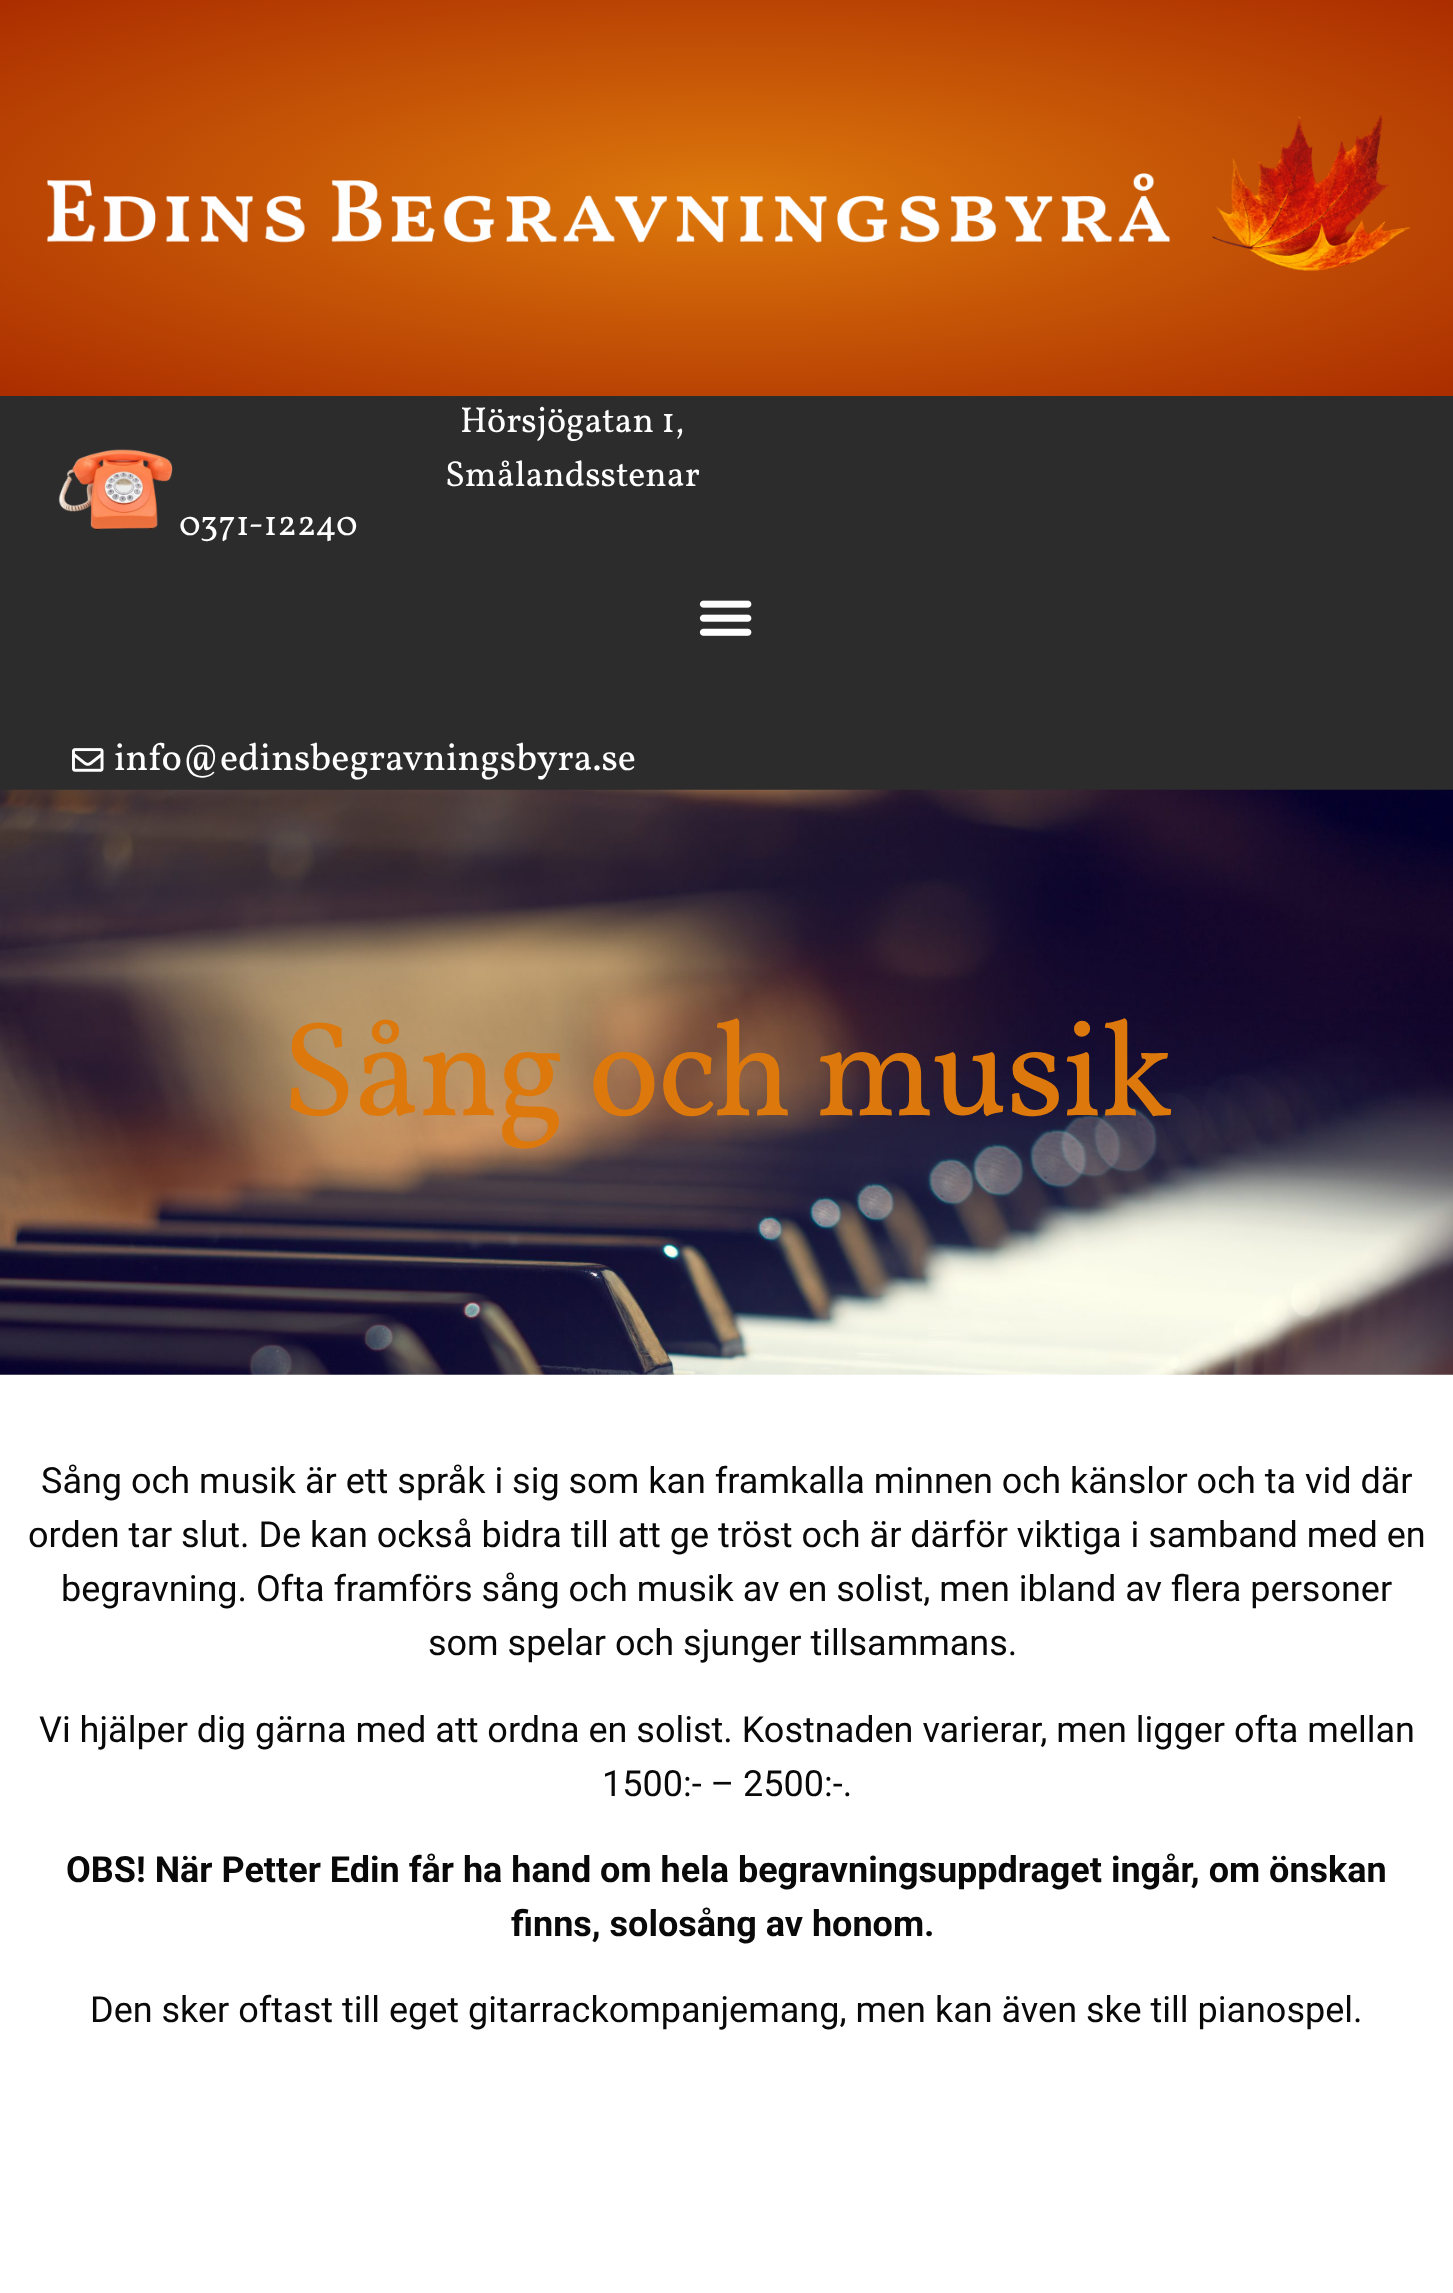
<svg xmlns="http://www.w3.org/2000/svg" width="1453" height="2293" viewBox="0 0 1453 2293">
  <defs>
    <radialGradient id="g1" gradientUnits="userSpaceOnUse" cx="0" cy="0" r="1" gradientTransform="matrix(1028 0 0 280 727 198)"><stop offset="0" stop-color="#dd790c"/><stop offset="1" stop-color="#ab2d00"/></radialGradient>
  </defs>
  <rect width="100%" height="100%" fill="#ffffff"/>
  <rect x="0" y="0" width="1453" height="396" fill="url(#g1)"/>
  <image x="47" y="113" width="1364" height="158" href="img1.png"/>
  <rect x="0" y="396" width="1453" height="394" fill="#2c2c2c"/>
  <text x="460" y="432" font-family="Vollkorn" font-size="36" fill="#ffffff">Hörsjögatan 1,</text>
  <text x="445" y="486" font-family="Vollkorn" font-size="36" fill="#ffffff">Smålandsstenar</text>
  <image x="58" y="449" width="115" height="82" href="img2.png"/>
  <text x="179" y="535" font-family="Vollkorn" font-size="36" fill="#ffffff">0371-12240</text>
  <image x="699" y="600" width="53" height="36" href="img3.png"/>
  <image x="72" y="748" width="32" height="24" href="img4.png"/>
  <text x="114" y="770" font-family="Vollkorn" font-size="38.25" fill="#ffffff">info@edinsbegravningsbyra.se</text>
  <image x="0" y="789" width="1453" height="586" href="img5.png"/>
  <text x="281" y="1115" font-family="Vollkorn" font-size="135" letter-spacing="-2.25" fill="#dd790c">Sång och musik</text>
  <text x="41" y="1493" font-family="Roboto" font-size="36" fill="#090909">Sång och musik är ett språk i sig som kan framkalla minnen och känslor och ta vid där</text>
  <text x="28" y="1547" font-family="Roboto" font-size="36" fill="#090909">orden tar slut. De kan också bidra till att ge tröst och är därför viktiga i samband med en</text>
  <text x="61" y="1601" font-family="Roboto" font-size="36" fill="#090909">begravning. Ofta framförs sång och musik av en solist, men ibland av flera personer</text>
  <text x="428" y="1655" font-family="Roboto" font-size="36" fill="#090909">som spelar och sjunger tillsammans.</text>
  <text x="39" y="1742" font-family="Roboto" font-size="36" fill="#090909">Vi hjälper dig gärna med att ordna en solist. Kostnaden varierar, men ligger ofta mellan</text>
  <text x="602" y="1796" font-family="Roboto" font-size="36" fill="#090909">1500:- – 2500:-.</text>
  <text x="66" y="1882" font-family="Roboto" font-size="36" font-weight="bold" fill="#090909">OBS! När Petter Edin får ha hand om hela begravningsuppdraget ingår, om önskan</text>
  <text x="511" y="1936" font-family="Roboto" font-size="36" font-weight="bold" fill="#090909">finns, solosång av honom.</text>
  <text x="90" y="2022" font-family="Roboto" font-size="36" fill="#090909">Den sker oftast till eget gitarrackompanjemang, men kan även ske till pianospel.</text>
</svg>
